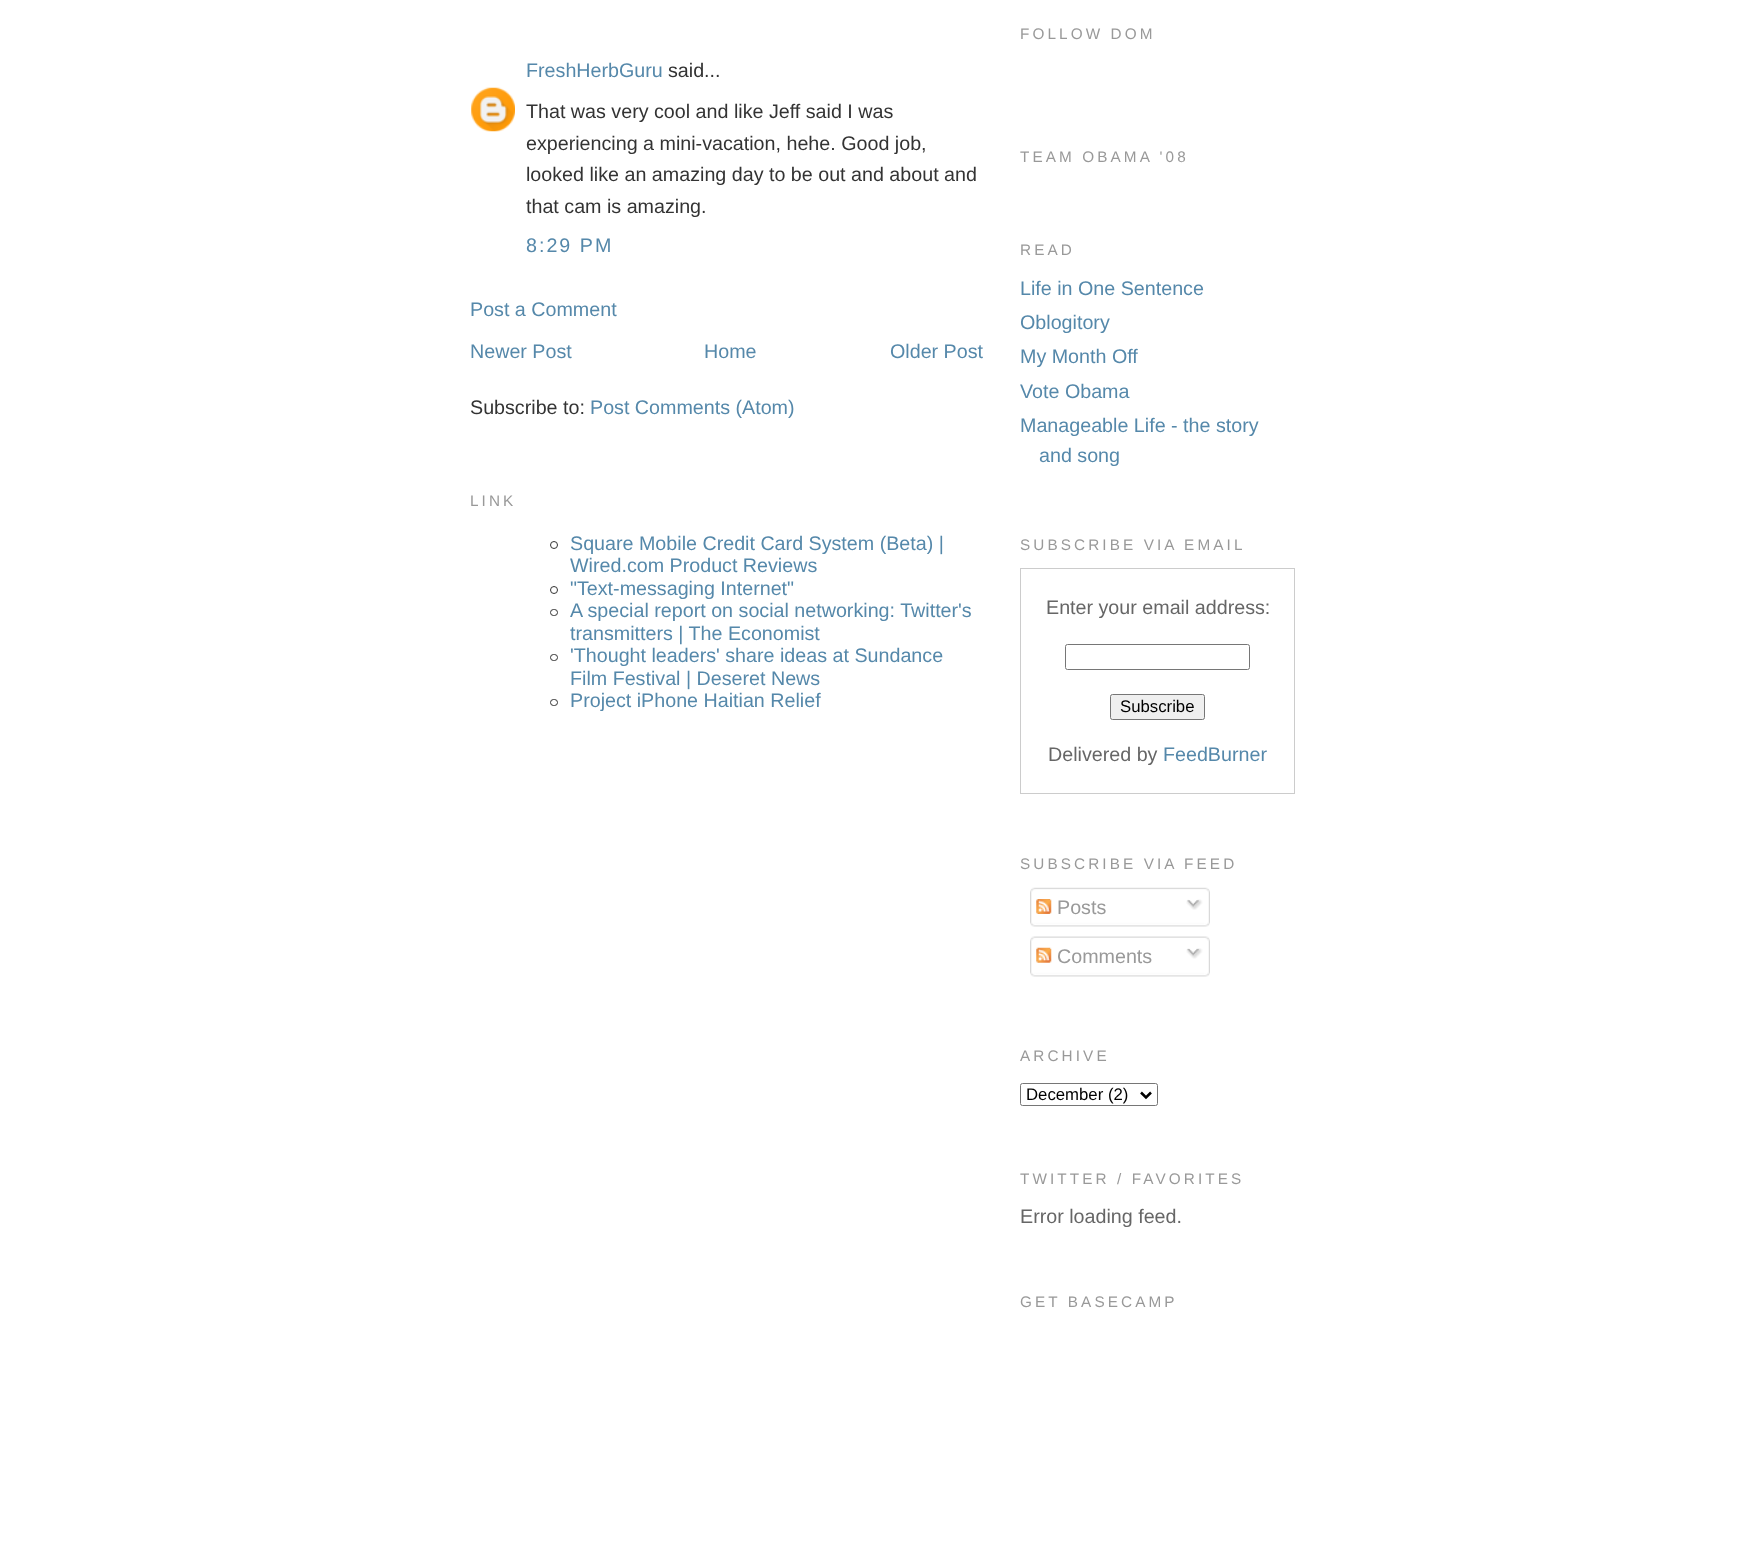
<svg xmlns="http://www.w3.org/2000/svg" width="1764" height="1552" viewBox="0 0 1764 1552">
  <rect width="100%" height="100%" fill="#ffffff"/>
  <text x="526" y="77" font-family="Liberation Sans" font-size="19.7" fill="#5588aa">FreshHerbGuru</text>
  <text x="668" y="77" font-family="Liberation Sans" font-size="19.7" fill="#333333">said...</text>
  <image x="471" y="87" width="44" height="45" href="img1.png"/>
  <text x="526" y="118" font-family="Liberation Sans" font-size="19.7" fill="#333333">That was very cool and like Jeff said I was</text>
  <text x="526" y="150" font-family="Liberation Sans" font-size="19.7" fill="#333333">experiencing a mini-vacation, hehe. Good job,</text>
  <text x="526" y="181" font-family="Liberation Sans" font-size="19.7" fill="#333333">looked like an amazing day to be out and about and</text>
  <text x="526" y="213" font-family="Liberation Sans" font-size="19.7" fill="#333333">that cam is amazing.</text>
  <text x="526" y="252" font-family="Liberation Sans" font-size="19.7" letter-spacing="2" fill="#5588aa">8:29 PM</text>
  <text x="470" y="316" font-family="Liberation Sans" font-size="19.7" fill="#5588aa">Post a Comment</text>
  <text x="470" y="358" font-family="Liberation Sans" font-size="19.7" fill="#5588aa">Newer Post</text>
  <text x="704" y="358" font-family="Liberation Sans" font-size="19.7" fill="#5588aa">Home</text>
  <text x="890" y="358" font-family="Liberation Sans" font-size="19.7" fill="#5588aa">Older Post</text>
  <text x="470" y="414" font-family="Liberation Sans" font-size="19.7" fill="#333333">Subscribe to:</text>
  <text x="590" y="414" font-family="Liberation Sans" font-size="19.7" fill="#5588aa">Post Comments (Atom)</text>
  <text x="470" y="506" font-family="Liberation Sans" font-size="15.3" letter-spacing="3.1" fill="#999999">LINK</text>
  <circle cx="554" cy="545" r="3.5" fill="none" stroke="#333333"/>
  <text x="570" y="550" font-family="Liberation Sans" font-size="19.7" fill="#5588aa">Square Mobile Credit Card System (Beta) |</text>
  <text x="570" y="572" font-family="Liberation Sans" font-size="19.7" fill="#5588aa">Wired.com Product Reviews</text>
  <circle cx="554" cy="590" r="3.5" fill="none" stroke="#333333"/>
  <text x="570" y="595" font-family="Liberation Sans" font-size="19.7" fill="#5588aa">"Text-messaging Internet"</text>
  <rect x="550.5" y="609.5" width="7" height="6" rx="3" fill="none" stroke="#333333"/>
  <text x="570" y="617" font-family="Liberation Sans" font-size="19.7" fill="#5588aa">A special report on social networking: Twitter's</text>
  <text x="570" y="640" font-family="Liberation Sans" font-size="19.7" fill="#5588aa">transmitters | The Economist</text>
  <rect x="550.5" y="654.5" width="7" height="6" rx="3" fill="none" stroke="#333333"/>
  <text x="570" y="662" font-family="Liberation Sans" font-size="19.7" fill="#5588aa">'Thought leaders' share ideas at Sundance</text>
  <text x="570" y="685" font-family="Liberation Sans" font-size="19.7" fill="#5588aa">Film Festival | Deseret News</text>
  <rect x="550.5" y="699.5" width="7" height="6" rx="3" fill="none" stroke="#333333"/>
  <text x="570" y="707" font-family="Liberation Sans" font-size="19.7" fill="#5588aa">Project iPhone Haitian Relief</text>
  <text x="1020" y="39" font-family="Liberation Sans" font-size="15.3" letter-spacing="3.1" fill="#999999">FOLLOW DOM</text>
  <text x="1020" y="162" font-family="Liberation Sans" font-size="15.3" letter-spacing="3.1" fill="#999999">TEAM OBAMA '08</text>
  <text x="1020" y="255" font-family="Liberation Sans" font-size="15.3" letter-spacing="3.1" fill="#999999">READ</text>
  <text x="1020" y="295" font-family="Liberation Sans" font-size="19.7" fill="#5588aa">Life in One Sentence</text>
  <text x="1020" y="329" font-family="Liberation Sans" font-size="19.7" fill="#5588aa">Oblogitory</text>
  <text x="1020" y="363" font-family="Liberation Sans" font-size="19.7" fill="#5588aa">My Month Off</text>
  <text x="1020" y="398" font-family="Liberation Sans" font-size="19.7" fill="#5588aa">Vote Obama</text>
  <text x="1020" y="432" font-family="Liberation Sans" font-size="19.7" fill="#5588aa">Manageable Life - the story</text>
  <text x="1039" y="462" font-family="Liberation Sans" font-size="19.7" fill="#5588aa">and song</text>
  <text x="1020" y="550" font-family="Liberation Sans" font-size="15.3" letter-spacing="3.1" fill="#999999">SUBSCRIBE VIA EMAIL</text>
  <rect x="1020.5" y="568.5" width="274" height="225" fill="none" stroke="#cccccc"/>
  <text x="1046" y="614" font-family="Liberation Sans" font-size="19.7" fill="#666666">Enter your email address:</text>
  <rect x="1065.5" y="644.5" width="184" height="25" rx="2" fill="none" stroke="#767676"/>
  <rect x="1110.5" y="694.5" width="94" height="25" rx="2" fill="#efefef" stroke="#767676"/>
  <text x="1120" y="712" font-family="Liberation Sans" font-size="16.75" fill="#000000">Subscribe</text>
  <text x="1048" y="761" font-family="Liberation Sans" font-size="19.7" fill="#666666">Delivered by</text>
  <text x="1163" y="761" font-family="Liberation Sans" font-size="19.7" fill="#5588aa">FeedBurner</text>
  <text x="1020" y="869" font-family="Liberation Sans" font-size="15.3" letter-spacing="3.1" fill="#999999">SUBSCRIBE VIA FEED</text>
  <image x="1030" y="887" width="180" height="36" href="img2.png"/>
  <image x="1036" y="899" width="16" height="15" href="img3.png"/>
  <text x="1057" y="914" font-family="Liberation Sans" font-size="19.7" fill="#999999">Posts</text>
  <image x="1186" y="899" width="17" height="11" href="img4.png"/>
  <image x="1030" y="922" width="180" height="5" href="img5.png"/>
  <image x="1030" y="936" width="180" height="37" href="img6.png"/>
  <image x="1036" y="947" width="16" height="16" href="img7.png"/>
  <text x="1057" y="963" font-family="Liberation Sans" font-size="19.7" fill="#999999">Comments</text>
  <image x="1186" y="948" width="17" height="11" href="img8.png"/>
  <image x="1030" y="972" width="180" height="5" href="img5.png"/>
  <text x="1020" y="1061" font-family="Liberation Sans" font-size="15.3" letter-spacing="3.1" fill="#999999">ARCHIVE</text>
  <rect x="1020.5" y="1083.5" width="137" height="22" rx="2" fill="none" stroke="#767676"/>
  <path d="M1141 1092.5L1146 1097.5L1151 1092.5" fill="none" stroke="#000000" stroke-width="2.5"/>
  <text x="1026" y="1100" font-family="Liberation Sans" font-size="16.75" fill="#000000">December (2)</text>
  <text x="1020" y="1184" font-family="Liberation Sans" font-size="15.3" letter-spacing="3.1" fill="#999999">TWITTER / FAVORITES</text>
  <text x="1020" y="1223" font-family="Liberation Sans" font-size="19.7" fill="#666666">Error loading feed.</text>
  <text x="1020" y="1307" font-family="Liberation Sans" font-size="15.3" letter-spacing="3.1" fill="#999999">GET BASECAMP</text>
</svg>
